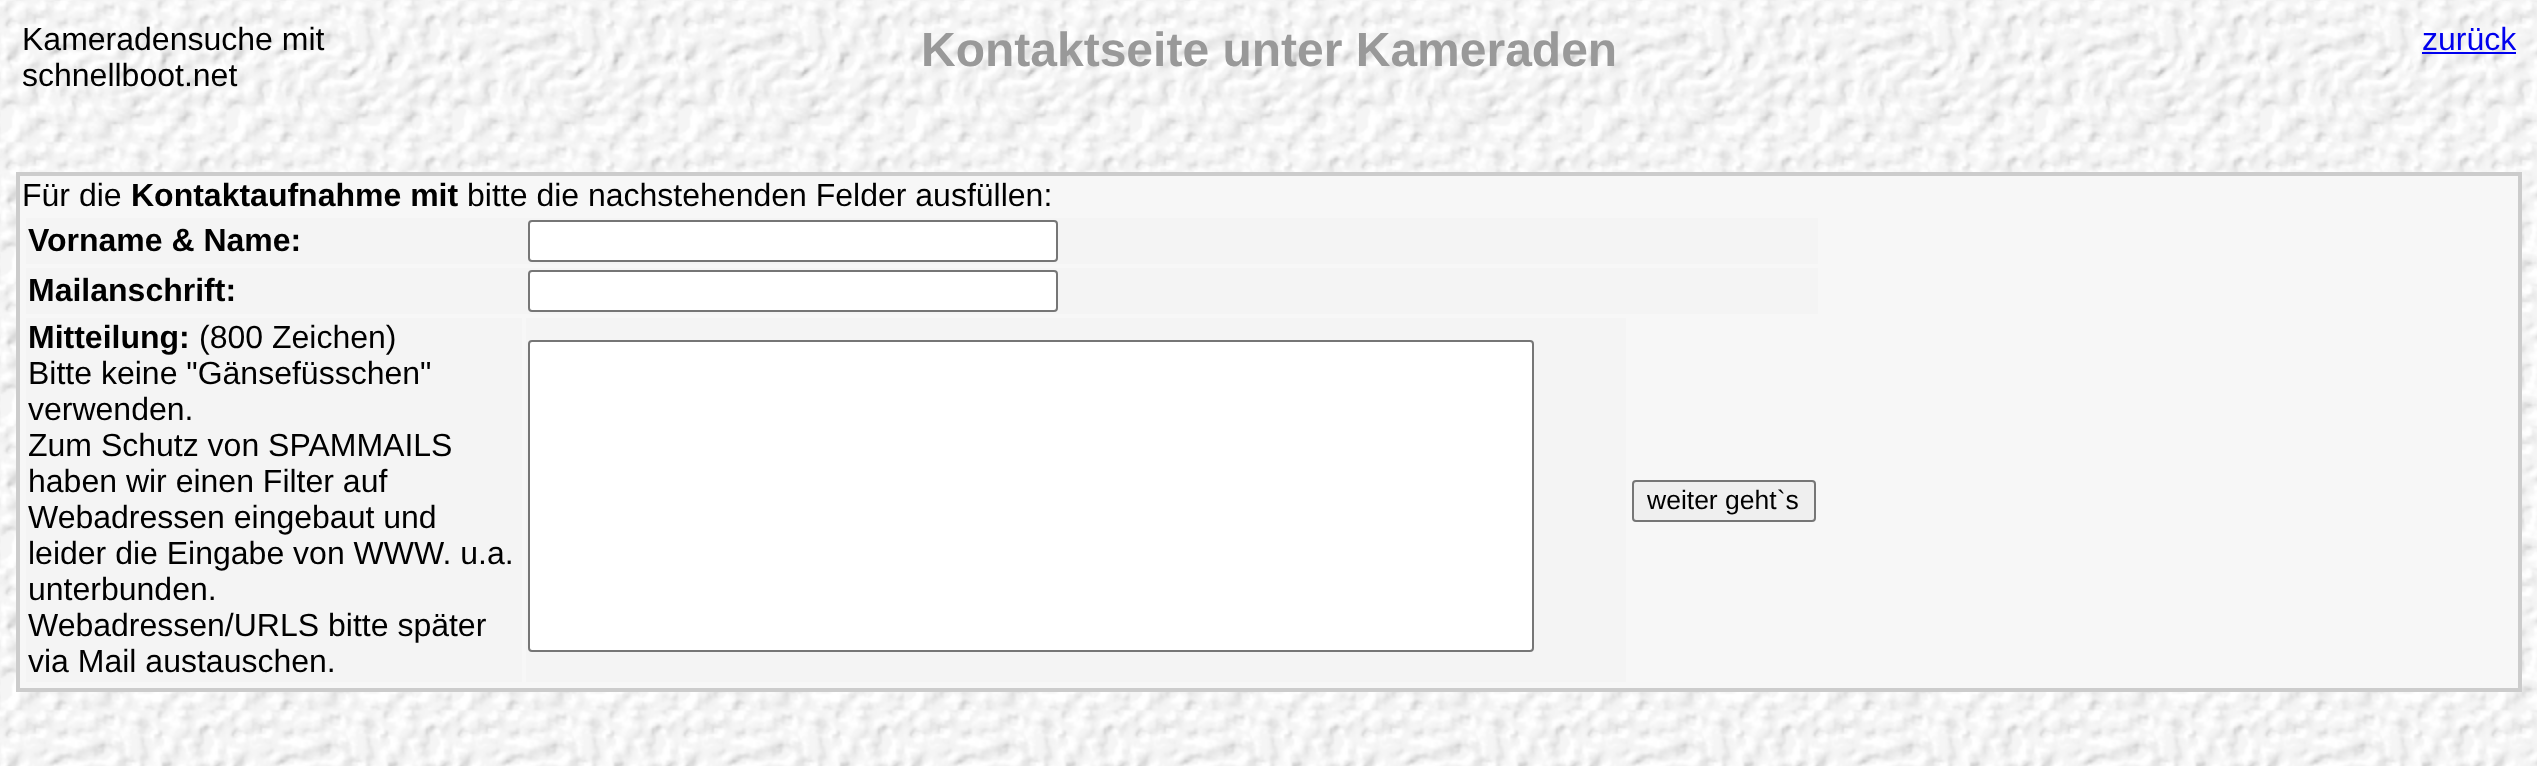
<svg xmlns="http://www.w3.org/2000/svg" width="2537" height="766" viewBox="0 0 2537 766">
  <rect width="100%" height="100%" fill="#ffffff"/>
  <image x="0" y="0" width="2537" height="766" href="img1.png"/>
  <text x="22" y="50" font-family="Liberation Sans" font-size="32" fill="#000000">Kameradensuche mit</text>
  <text x="22" y="86" font-family="Liberation Sans" font-size="32" fill="#000000">schnellboot.net</text>
  <text x="921" y="66" font-family="Liberation Sans" font-size="48" font-weight="bold" fill="#999999">Kontaktseite unter Kameraden</text>
  <text x="2422" y="50" font-family="Liberation Sans" font-size="32" fill="#0000ee">zurück</text>
  <rect x="2422" y="52" width="94" height="2" fill="#0000ee"/>
  <rect x="16" y="172" width="2506" height="520" fill="#cccccc"/>
  <rect x="20" y="176" width="2498" height="512" fill="#f7f7f7"/>
  <text x="22" y="206" font-family="Liberation Sans" font-size="32" fill="#000000">Für die</text>
  <text x="131" y="206" font-family="Liberation Sans" font-size="32" font-weight="bold" fill="#000000">Kontaktaufnahme mit</text>
  <text x="467" y="206" font-family="Liberation Sans" font-size="32" fill="#000000">bitte die nachstehenden Felder ausfüllen:</text>
  <rect x="26" y="218" width="1792" height="46" fill="#f4f4f4"/>
  <text x="28" y="251" font-family="Liberation Sans" font-size="32" font-weight="bold" fill="#000000">Vorname &amp; Name:</text>
  <rect x="529" y="221" width="528" height="40" rx="3" fill="#ffffff" stroke="#767676" stroke-width="2"/>
  <rect x="26" y="268" width="1792" height="46" fill="#f4f4f4"/>
  <text x="28" y="301" font-family="Liberation Sans" font-size="32" font-weight="bold" fill="#000000">Mailanschrift:</text>
  <rect x="529" y="271" width="528" height="40" rx="3" fill="#ffffff" stroke="#767676" stroke-width="2"/>
  <rect x="26" y="318" width="496" height="364" fill="#f4f4f4"/>
  <text x="28" y="348" font-family="Liberation Sans" font-size="32" font-weight="bold" fill="#000000">Mitteilung:</text>
  <text x="199" y="348" font-family="Liberation Sans" font-size="32" fill="#000000">(800 Zeichen)</text>
  <text x="28" y="384" font-family="Liberation Sans" font-size="32" fill="#000000">Bitte keine "Gänsefüsschen"</text>
  <text x="28" y="420" font-family="Liberation Sans" font-size="32" fill="#000000">verwenden.</text>
  <text x="28" y="456" font-family="Liberation Sans" font-size="32" fill="#000000">Zum Schutz von SPAMMAILS</text>
  <text x="28" y="492" font-family="Liberation Sans" font-size="32" fill="#000000">haben wir einen Filter auf</text>
  <text x="28" y="528" font-family="Liberation Sans" font-size="32" fill="#000000">Webadressen eingebaut und</text>
  <text x="28" y="564" font-family="Liberation Sans" font-size="32" fill="#000000">leider die Eingabe von WWW. u.a.</text>
  <text x="28" y="600" font-family="Liberation Sans" font-size="32" fill="#000000">unterbunden.</text>
  <text x="28" y="636" font-family="Liberation Sans" font-size="32" fill="#000000">Webadressen/URLS bitte später</text>
  <text x="28" y="672" font-family="Liberation Sans" font-size="32" fill="#000000">via Mail austauschen.</text>
  <rect x="526" y="318" width="1100" height="364" fill="#f4f4f4"/>
  <rect x="529" y="341" width="1004" height="310" rx="3" fill="#ffffff" stroke="#767676" stroke-width="2"/>
  <rect x="1633" y="481" width="182" height="40" rx="3" fill="#efefef" stroke="#767676" stroke-width="2"/>
  <text x="1647" y="509" font-family="Liberation Sans" font-size="26.5" fill="#000000">weiter geht`s</text>
</svg>
